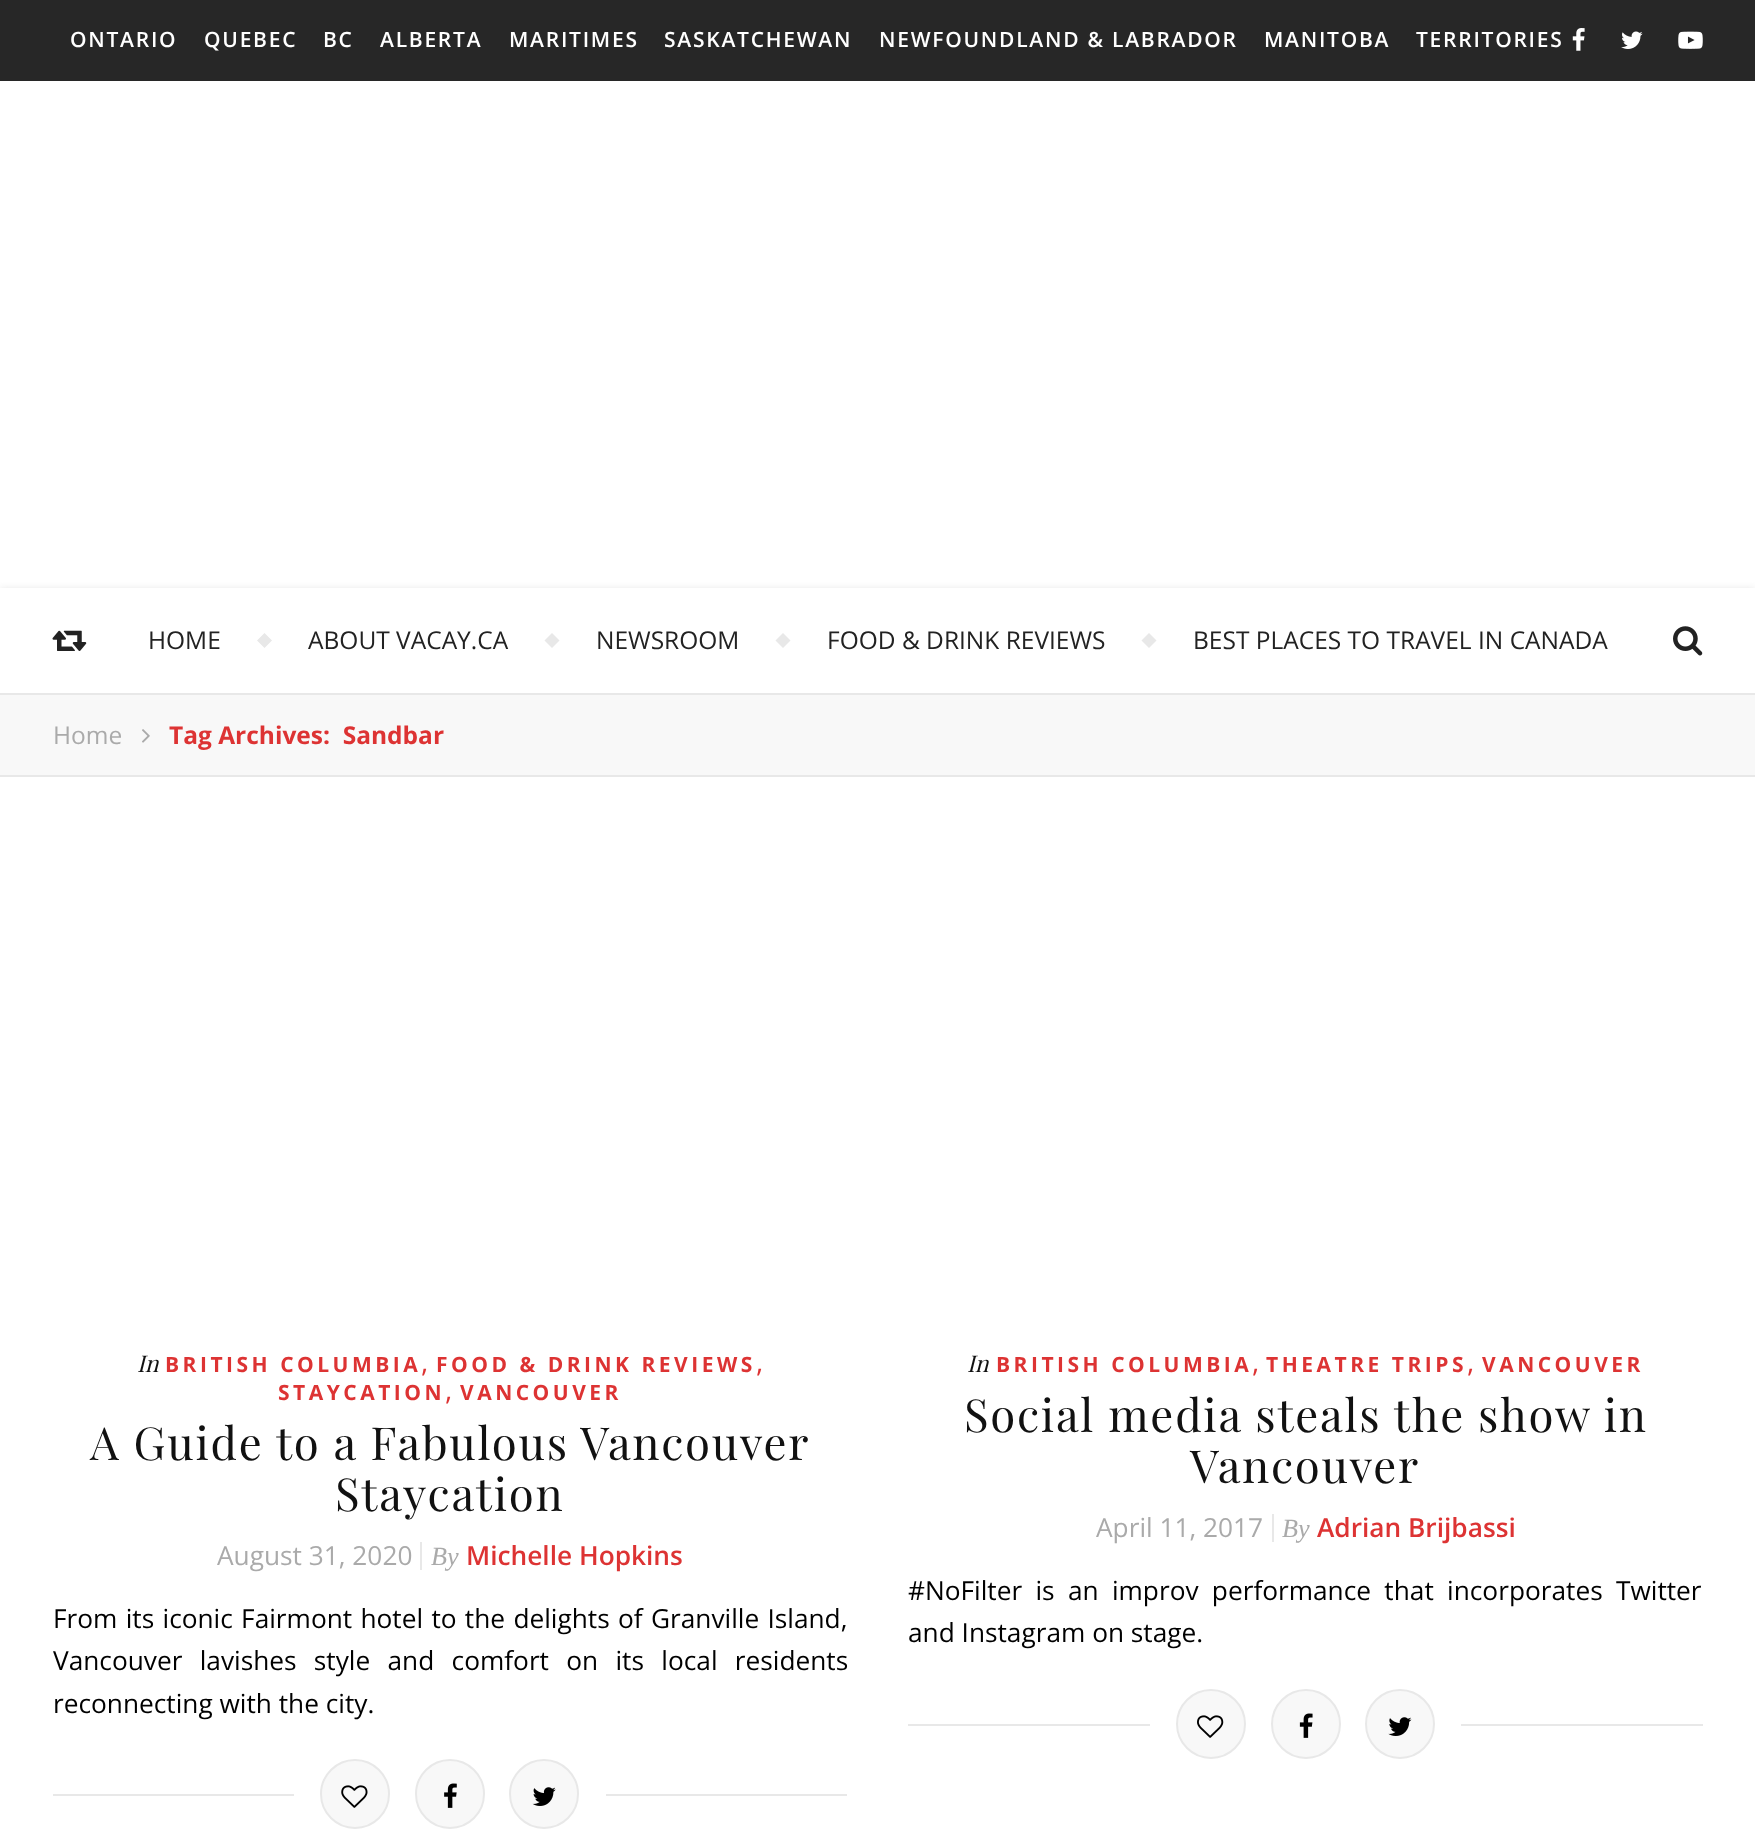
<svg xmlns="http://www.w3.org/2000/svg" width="1755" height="1832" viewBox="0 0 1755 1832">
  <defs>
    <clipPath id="clip1"><rect x="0" y="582" width="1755" height="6"/></clipPath>
    <filter id="blur1" x="-50%" y="-200%" width="200%" height="500%"><feGaussianBlur stdDeviation="4.5"/></filter>
  </defs>
  <rect width="100%" height="100%" fill="#ffffff"/>
  <rect x="0" y="0" width="1755" height="81" fill="#272727"/>
  <text x="70" y="47" font-family="Open Sans" font-size="21" font-weight="600" letter-spacing="1.75" fill="#ffffff">ONTARIO</text>
  <text x="204" y="47" font-family="Open Sans" font-size="21" font-weight="600" letter-spacing="1.75" fill="#ffffff">QUEBEC</text>
  <text x="323" y="47" font-family="Open Sans" font-size="21" font-weight="600" letter-spacing="1.75" fill="#ffffff">BC</text>
  <text x="380" y="47" font-family="Open Sans" font-size="21" font-weight="600" letter-spacing="1.75" fill="#ffffff">ALBERTA</text>
  <text x="509" y="47" font-family="Open Sans" font-size="21" font-weight="600" letter-spacing="1.75" fill="#ffffff">MARITIMES</text>
  <text x="664" y="47" font-family="Open Sans" font-size="21" font-weight="600" letter-spacing="1.75" fill="#ffffff">SASKATCHEWAN</text>
  <text x="879" y="47" font-family="Open Sans" font-size="21" font-weight="600" letter-spacing="1.75" fill="#ffffff">NEWFOUNDLAND &amp; LABRADOR</text>
  <text x="1264" y="47" font-family="Open Sans" font-size="21" font-weight="600" letter-spacing="1.75" fill="#ffffff">MANITOBA</text>
  <text x="1416" y="47" font-family="Open Sans" font-size="21" font-weight="600" letter-spacing="1.75" fill="#ffffff">TERRITORIES</text>
  <image x="1572" y="28" width="13" height="23" href="img1.png"/>
  <image x="1621" y="31" width="22" height="18" href="img2.png"/>
  <image x="1678" y="31" width="25" height="18" href="img3.png"/>
  <g clip-path="url(#clip1)">
    <rect x="0" y="590" width="1755" height="105" fill="#b9b9b9" fill-opacity="0.5" filter="url(#blur1)"/>
  </g>
  <image x="52" y="630" width="35" height="21" href="img4.png"/>
  <text x="148" y="649" font-family="Open Sans" font-size="24.5" fill="#222222">HOME</text>
  <path d="M257 640.5L264.5 633L272 640.5L264.5 648Z" fill="#e8e8e8"/>
  <text x="308" y="649" font-family="Open Sans" font-size="24.5" fill="#222222">ABOUT VACAY.CA</text>
  <path d="M544.5 640.5L552 633L559.5 640.5L552 648Z" fill="#e8e8e8"/>
  <text x="596" y="649" font-family="Open Sans" font-size="24.5" fill="#222222">NEWSROOM</text>
  <path d="M775.5 640.5L783 633L790.5 640.5L783 648Z" fill="#e8e8e8"/>
  <text x="827" y="649" font-family="Open Sans" font-size="24.5" fill="#222222">FOOD &amp; DRINK REVIEWS</text>
  <path d="M1141.5 640.5L1149 633L1156.5 640.5L1149 648Z" fill="#e8e8e8"/>
  <text x="1193" y="649" font-family="Open Sans" font-size="24.5" fill="#222222">BEST PLACES TO TRAVEL IN CANADA</text>
  <image x="1673" y="626" width="30" height="30" href="img5.png"/>
  <rect x="0" y="695" width="1755" height="80" fill="#f8f8f8"/>
  <rect x="0" y="693" width="1755" height="2" fill="#e8e8e8"/>
  <rect x="0" y="775" width="1755" height="2" fill="#e8e8e8"/>
  <text x="53" y="744" font-family="Open Sans" font-size="24.5" fill="#aaaaaa">Home</text>
  <image x="142" y="729" width="8" height="14" href="img6.png"/>
  <text x="169" y="744" font-family="Open Sans" font-size="24.5" font-weight="bold" fill="#dd3333" xml:space="preserve">Tag Archives:  Sandbar</text>
  <text x="137" y="1372" font-family="Playfair Display" font-size="23" font-style="italic" fill="#111111">In</text>
  <text x="165" y="1372" font-family="Open Sans" font-size="21" font-weight="bold" letter-spacing="3.5" fill="#dd3333">BRITISH COLUMBIA</text>
  <text x="421" y="1372" font-family="Open Sans" font-size="28" fill="#dd3333">,</text>
  <text x="436" y="1372" font-family="Open Sans" font-size="21" font-weight="bold" letter-spacing="3.5" fill="#dd3333">FOOD &amp; DRINK REVIEWS</text>
  <text x="756" y="1372" font-family="Open Sans" font-size="28" fill="#dd3333">,</text>
  <text x="278" y="1400" font-family="Open Sans" font-size="21" font-weight="bold" letter-spacing="3.5" fill="#dd3333">STAYCATION</text>
  <text x="445" y="1400" font-family="Open Sans" font-size="28" fill="#dd3333">,</text>
  <text x="460" y="1400" font-family="Open Sans" font-size="21" font-weight="bold" letter-spacing="3.5" fill="#dd3333">VANCOUVER</text>
  <text x="90" y="1460" font-family="Playfair Display" font-size="45.5" letter-spacing="1.75" fill="#111111">A Guide to a Fabulous Vancouver</text>
  <text x="335" y="1511" font-family="Playfair Display" font-size="45.5" letter-spacing="1.75" fill="#111111">Staycation</text>
  <text x="217" y="1565" font-family="Open Sans" font-size="26.25" fill="#aaaaaa">August 31, 2020</text>
  <text x="431" y="1565" font-family="Liberation Serif" font-size="26.25" font-style="italic" fill="#aaaaaa">By</text>
  <rect x="420" y="1542" width="2" height="28" fill="#e8e8e8"/>
  <text x="466" y="1565" font-family="Open Sans" font-size="26.25" font-weight="600" fill="#dd3333">Michelle Hopkins</text>
  <text x="53" y="1628" word-spacing="1.5" font-family="Open Sans" font-size="26.25" fill="#000000">From its iconic Fairmont hotel to the delights of Granville Island,</text>
  <text x="53" y="1670" word-spacing="10.5" font-family="Open Sans" font-size="26.25" fill="#000000">Vancouver lavishes style and comfort on its local residents</text>
  <text x="53" y="1713" font-family="Open Sans" font-size="26.25" fill="#000000">reconnecting with the city.</text>
  <rect x="53" y="1794" width="241" height="2" fill="#e8e8e8"/>
  <circle cx="355" cy="1794" r="34" fill="#f8f8f8" stroke="#e8e8e8" stroke-width="2"/>
  <image x="341" y="1785" width="27" height="23" href="img7.png"/>
  <circle cx="450" cy="1794" r="34" fill="#f8f8f8" stroke="#e8e8e8" stroke-width="2"/>
  <image x="444" y="1783" width="13" height="25" href="img8.png"/>
  <circle cx="544" cy="1794" r="34" fill="#f8f8f8" stroke="#e8e8e8" stroke-width="2"/>
  <image x="532" y="1787" width="24" height="19" href="img9.png"/>
  <rect x="606" y="1794" width="241" height="2" fill="#e8e8e8"/>
  <text x="967" y="1372" font-family="Playfair Display" font-size="23" font-style="italic" fill="#111111">In</text>
  <text x="996" y="1372" font-family="Open Sans" font-size="21" font-weight="bold" letter-spacing="3.5" fill="#dd3333">BRITISH COLUMBIA</text>
  <text x="1252" y="1372" font-family="Open Sans" font-size="28" fill="#dd3333">,</text>
  <text x="1266" y="1372" font-family="Open Sans" font-size="21" font-weight="bold" letter-spacing="3.5" fill="#dd3333">THEATRE TRIPS</text>
  <text x="1467" y="1372" font-family="Open Sans" font-size="28" fill="#dd3333">,</text>
  <text x="1482" y="1372" font-family="Open Sans" font-size="21" font-weight="bold" letter-spacing="3.5" fill="#dd3333">VANCOUVER</text>
  <text x="964" y="1432" font-family="Playfair Display" font-size="45.5" letter-spacing="1.75" fill="#111111">Social media steals the show in</text>
  <text x="1190" y="1483" font-family="Playfair Display" font-size="45.5" letter-spacing="1.75" fill="#111111">Vancouver</text>
  <text x="1096" y="1537" font-family="Open Sans" font-size="26.25" fill="#aaaaaa">April 11, 2017</text>
  <text x="1282" y="1537" font-family="Liberation Serif" font-size="26.25" font-style="italic" fill="#aaaaaa">By</text>
  <rect x="1272" y="1514" width="2" height="28" fill="#e8e8e8"/>
  <text x="1317" y="1537" font-family="Open Sans" font-size="26.25" font-weight="600" fill="#dd3333">Adrian Brijbassi</text>
  <text x="908" y="1600" word-spacing="6.5" font-family="Open Sans" font-size="26.25" fill="#000000">#NoFilter is an improv performance that incorporates Twitter</text>
  <text x="908" y="1642" font-family="Open Sans" font-size="26.25" fill="#000000">and Instagram on stage.</text>
  <rect x="908" y="1724" width="242" height="2" fill="#e8e8e8"/>
  <circle cx="1211" cy="1724" r="34" fill="#f8f8f8" stroke="#e8e8e8" stroke-width="2"/>
  <image x="1197" y="1715" width="27" height="23" href="img10.png"/>
  <circle cx="1306" cy="1724" r="34" fill="#f8f8f8" stroke="#e8e8e8" stroke-width="2"/>
  <image x="1299" y="1713" width="14" height="25" href="img11.png"/>
  <circle cx="1400" cy="1724" r="34" fill="#f8f8f8" stroke="#e8e8e8" stroke-width="2"/>
  <image x="1388" y="1717" width="24" height="19" href="img12.png"/>
  <rect x="1461" y="1724" width="242" height="2" fill="#e8e8e8"/>
</svg>
